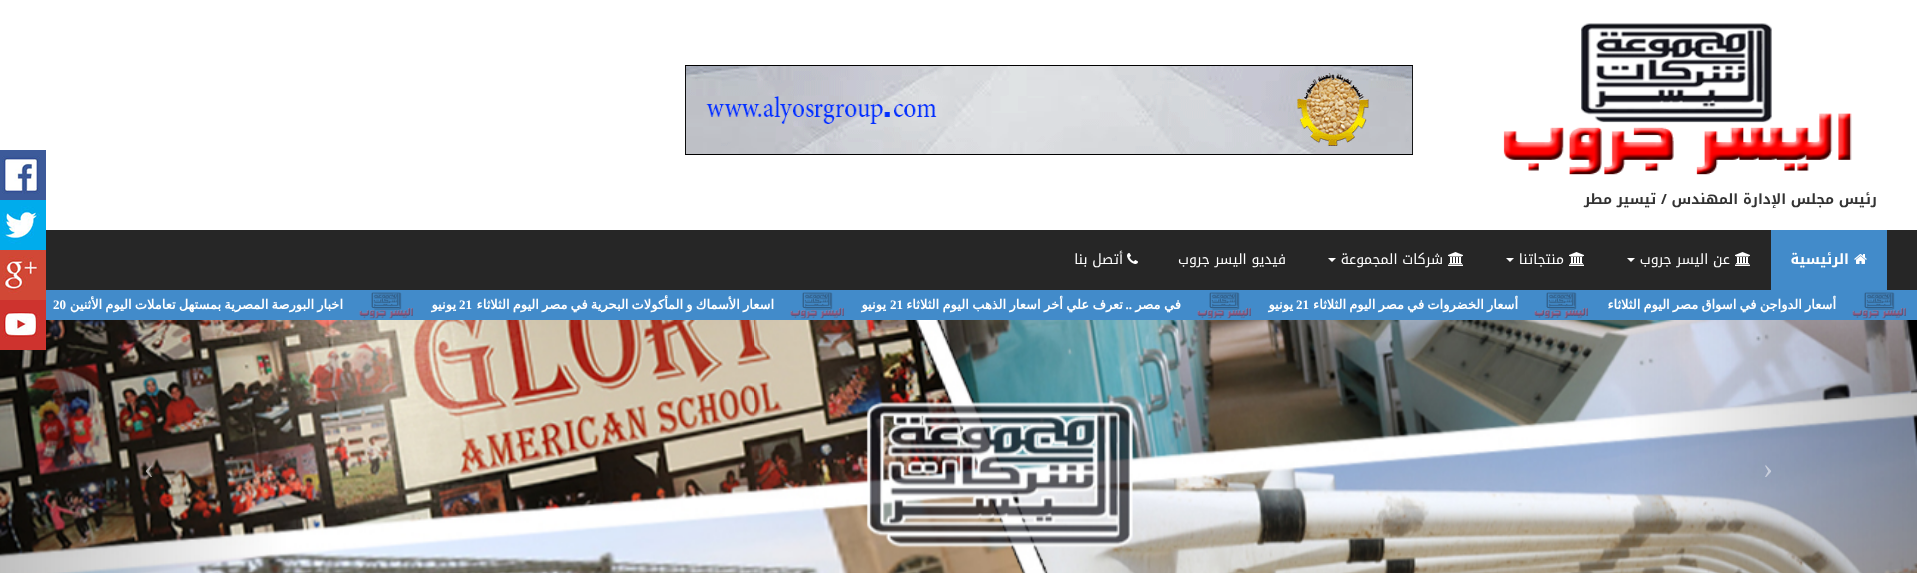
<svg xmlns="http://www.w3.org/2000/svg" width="1917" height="573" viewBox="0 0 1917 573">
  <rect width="100%" height="100%" fill="#ffffff"/>
  <image x="685" y="65" width="728" height="90" href="img1.png"/>
  <image x="1503" y="23" width="349" height="152" href="img2.png"/>
  <text x="1877" y="204" font-family="Noto Kufi Arabic" font-size="14" font-weight="bold" direction="rtl" fill="#333333">رئيس مجلس الإدارة المهندس / تيسير مطر</text>
  <image x="0" y="150" width="46" height="50" href="img3.png"/>
  <image x="0" y="200" width="46" height="50" href="img4.png"/>
  <rect x="46" y="230" width="1871" height="60" fill="#262626"/>
  <rect x="1771" y="230" width="116" height="60" fill="#428bca"/>
  <image x="1854" y="254" width="13" height="10" href="img5.png"/>
  <text x="1849" y="264" font-family="Noto Kufi Arabic" font-size="14" font-weight="bold" direction="rtl" fill="#ffffff">الرئيسية</text>
  <image x="1735" y="252" width="15" height="14" href="img6.png"/>
  <text x="1730" y="264" font-family="Noto Kufi Arabic" font-size="14" direction="rtl" fill="#ffffff">عن اليسر جروب</text>
  <path d="M1627 258H1635L1631 262Z" fill="#ffffff"/>
  <image x="1569" y="252" width="15" height="14" href="img6.png"/>
  <text x="1564" y="264" font-family="Noto Kufi Arabic" font-size="14" direction="rtl" fill="#ffffff">منتجاتنا</text>
  <path d="M1506 258H1514L1510 262Z" fill="#ffffff"/>
  <image x="1448" y="252" width="15" height="14" href="img6.png"/>
  <text x="1443" y="264" font-family="Noto Kufi Arabic" font-size="14" direction="rtl" fill="#ffffff">شركات المجموعة</text>
  <path d="M1328 258H1336L1332 262Z" fill="#ffffff"/>
  <text x="1286" y="264" font-family="Noto Kufi Arabic" font-size="14" direction="rtl" fill="#ffffff">فيديو اليسر جروب</text>
  <image x="1127" y="253" width="11" height="11" href="img7.png"/>
  <text x="1123" y="264" font-family="Noto Kufi Arabic" font-size="14" direction="rtl" fill="#ffffff">أتصل بنا</text>
  <image x="0" y="250" width="46" height="50" href="img8.png"/>
  <rect x="46" y="290" width="1871" height="30" fill="#428bca"/>
  <image x="1852" y="292" width="54" height="27" href="img9.png"/>
  <text x="1836" y="309" word-spacing="-1" font-family="DejaVu Sans" font-size="13" font-weight="bold" direction="rtl" fill="#ffffff">أسعار الدواجن في اسواق مصر اليوم الثلاثاء</text>
  <image x="1534" y="292" width="54" height="27" href="img10.png"/>
  <text x="1518" y="309" word-spacing="-1" font-family="DejaVu Sans" font-size="13" font-weight="bold" direction="rtl" fill="#ffffff">أسعار الخضروات في مصر اليوم الثلاثاء</text>
  <text x="1296" y="309" font-family="Liberation Serif" font-size="13" font-weight="bold" fill="#ffffff">21</text>
  <text x="1293" y="309" font-family="DejaVu Sans" font-size="13" font-weight="bold" direction="rtl" fill="#ffffff">يونيو</text>
  <image x="1197" y="292" width="54" height="27" href="img10.png"/>
  <text x="1181" y="309" word-spacing="-0.75" font-family="DejaVu Sans" font-size="13" font-weight="bold" direction="rtl" fill="#ffffff">في مصر</text>
  <text x="1123" y="309" word-spacing="-0.75" font-family="DejaVu Sans" font-size="13" font-weight="bold" direction="rtl" fill="#ffffff">تعرف علي أخر اسعار الذهب اليوم الثلاثاء</text>
  <text x="1132" y="309" font-family="Liberation Serif" font-size="13" font-weight="bold" direction="rtl" fill="#ffffff">..</text>
  <text x="890" y="309" font-family="Liberation Serif" font-size="13" font-weight="bold" fill="#ffffff">21</text>
  <text x="886" y="309" font-family="DejaVu Sans" font-size="13" font-weight="bold" direction="rtl" fill="#ffffff">يونيو</text>
  <image x="790" y="292" width="54" height="27" href="img10.png"/>
  <text x="774" y="309" word-spacing="-1" font-family="DejaVu Sans" font-size="13" font-weight="bold" direction="rtl" fill="#ffffff">اسعار الأسماك و المأكولات البحرية في مصر اليوم الثلاثاء</text>
  <text x="459" y="309" font-family="Liberation Serif" font-size="13" font-weight="bold" fill="#ffffff">21</text>
  <text x="456" y="309" font-family="DejaVu Sans" font-size="13" font-weight="bold" direction="rtl" fill="#ffffff">يونيو</text>
  <image x="359" y="292" width="54" height="27" href="img10.png"/>
  <text x="343" y="309" word-spacing="-1" font-family="DejaVu Sans" font-size="13" font-weight="bold" direction="rtl" fill="#ffffff">اخبار البورصة المصرية بمستهل تعاملات اليوم الأثنين</text>
  <text x="53" y="309" font-family="Liberation Serif" font-size="13" font-weight="bold" fill="#ffffff">20</text>
  <image x="0" y="320" width="1917" height="253" href="img12.png"/>
  <image x="0" y="300" width="46" height="50" href="img11.png"/>
  <text x="1763" y="478" font-family="Liberation Serif" font-size="30" fill="#c8cedb">›</text>
  <text x="144" y="478" font-family="Liberation Serif" font-size="30" fill="#aba6a3">‹</text>
</svg>
